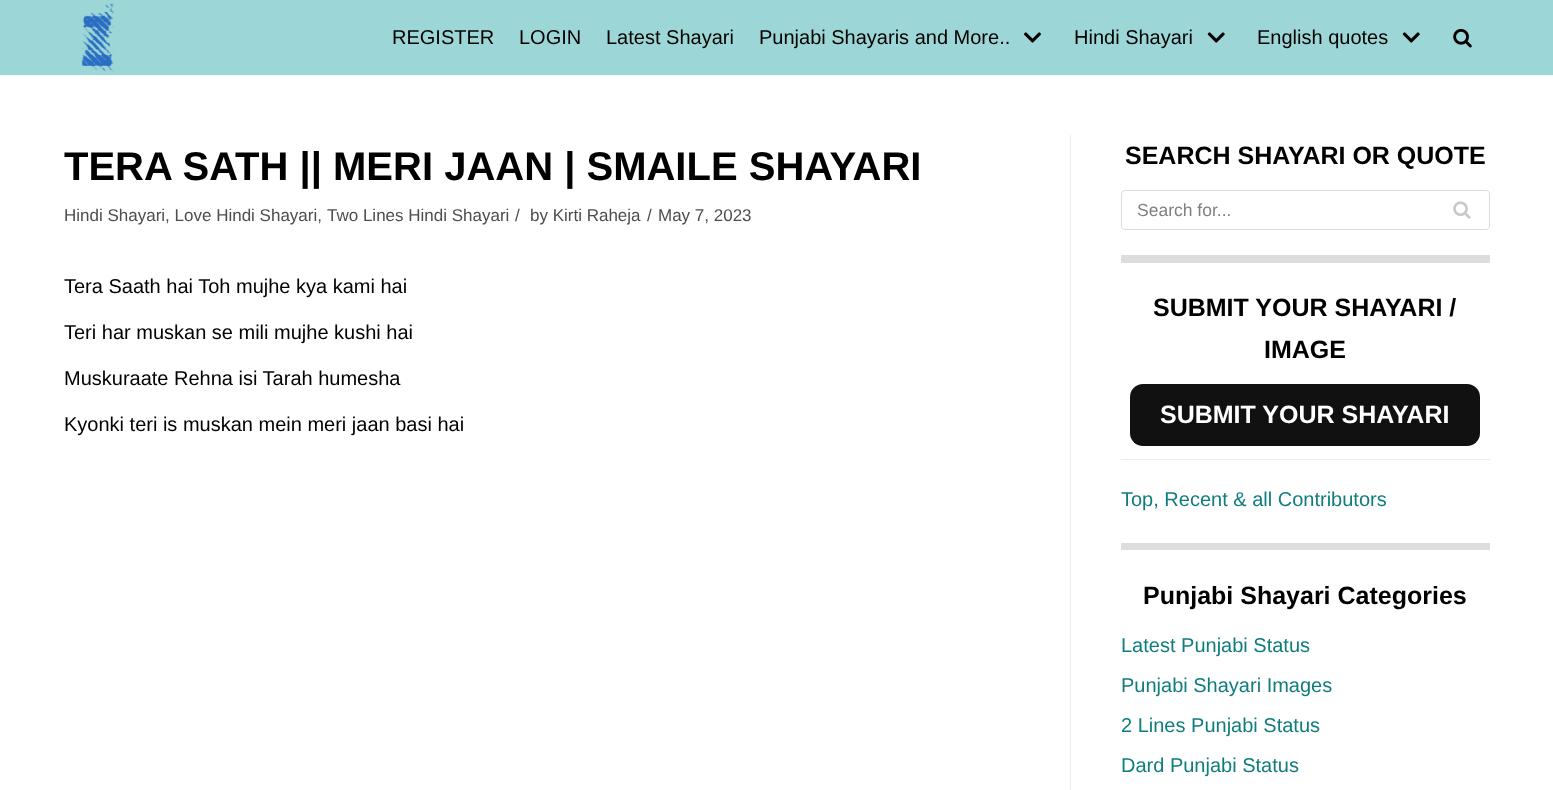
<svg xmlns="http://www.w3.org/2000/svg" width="1553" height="790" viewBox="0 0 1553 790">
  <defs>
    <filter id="blur1" x="-50%" y="-200%" width="200%" height="500%"><feGaussianBlur stdDeviation="2"/></filter>
  </defs>
  <rect width="100%" height="100%" fill="#ffffff"/>
  <rect x="0" y="-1" width="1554" height="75" fill="#000000" fill-opacity="0.1" filter="url(#blur1)"/>
  <rect x="0" y="0" width="1553" height="75" fill="#9dd6d6"/>
  <image x="81" y="3" width="33" height="69" href="img1.png"/>
  <text x="392" y="44" font-family="Liberation Sans" font-size="20" fill="#000000">REGISTER</text>
  <text x="519" y="44" font-family="Liberation Sans" font-size="20" fill="#000000">LOGIN</text>
  <text x="606" y="44" font-family="Liberation Sans" font-size="20" fill="#000000">Latest Shayari</text>
  <text x="759" y="44" font-family="Liberation Sans" font-size="20" fill="#000000">Punjabi Shayaris and More..</text>
  <image x="1024" y="32" width="17" height="11" href="img2.png"/>
  <text x="1074" y="44" font-family="Liberation Sans" font-size="20" fill="#000000">Hindi Shayari</text>
  <image x="1207" y="32" width="18" height="11" href="img3.png"/>
  <text x="1257" y="44" font-family="Liberation Sans" font-size="20" fill="#000000">English quotes</text>
  <image x="1402" y="32" width="18" height="11" href="img3.png"/>
  <image x="1453" y="28" width="19" height="20" href="img4.png"/>
  <text x="64" y="180" font-family="Liberation Sans" font-size="40" font-weight="bold" fill="#000000">TERA SATH || MERI JAAN | SMAILE SHAYARI</text>
  <text x="64" y="221" font-family="Liberation Sans" font-size="17" fill="#4d4d4d">Hindi Shayari, Love Hindi Shayari,</text>
  <text x="327" y="221" font-family="Liberation Sans" font-size="17" fill="#4d4d4d">Two Lines Hindi Shayari</text>
  <text x="515" y="221" font-family="Liberation Sans" font-size="17" fill="#4d4d4d">/</text>
  <text x="530" y="221" font-family="Liberation Sans" font-size="17" fill="#4d4d4d">by Kirti Raheja</text>
  <text x="647" y="221" font-family="Liberation Sans" font-size="17" fill="#4d4d4d">/</text>
  <text x="658" y="221" font-family="Liberation Sans" font-size="17" fill="#4d4d4d">May 7, 2023</text>
  <text x="64" y="293" font-family="Liberation Sans" font-size="20" fill="#000000">Tera Saath hai Toh mujhe kya kami hai</text>
  <text x="64" y="339" font-family="Liberation Sans" font-size="20" fill="#000000">Teri har muskan se mili mujhe kushi hai</text>
  <text x="64" y="385" font-family="Liberation Sans" font-size="20" fill="#000000">Muskuraate Rehna isi Tarah humesha</text>
  <text x="64" y="431" font-family="Liberation Sans" font-size="20" fill="#000000">Kyonki teri is muskan mein meri jaan basi hai</text>
  <rect x="1070" y="135" width="1" height="655" fill="#ededed"/>
  <rect x="1121" y="255" width="369" height="8" fill="#dddddd"/>
  <text x="1125" y="164" font-family="Liberation Sans" font-size="25" font-weight="bold" fill="#000000">SEARCH SHAYARI OR QUOTE</text>
  <rect x="1121.5" y="190.5" width="368" height="39" rx="3.5" fill="none" stroke="#dddddd"/>
  <text x="1137" y="216" font-family="Liberation Sans" font-size="17.5" fill="#808080">Search for...</text>
  <image x="1453" y="201" width="18" height="18" href="img5.png"/>
  <rect x="1121" y="543" width="369" height="7" fill="#dddddd"/>
  <text x="1153" y="316" font-family="Liberation Sans" font-size="25" font-weight="bold" fill="#000000">SUBMIT YOUR SHAYARI /</text>
  <text x="1264" y="358" font-family="Liberation Sans" font-size="25" font-weight="bold" fill="#000000">IMAGE</text>
  <rect x="1130" y="384" width="350" height="62" rx="13" fill="#111111"/>
  <text x="1160" y="423" font-family="Liberation Sans" font-size="25" font-weight="bold" fill="#ffffff">SUBMIT YOUR SHAYARI</text>
  <rect x="1121" y="459" width="369" height="1" fill="#ededed"/>
  <text x="1121" y="506" font-family="Liberation Sans" font-size="20" fill="#0f7d7d">Top, Recent &amp; all Contributors</text>
  <text x="1143" y="604" font-family="Liberation Sans" font-size="25" font-weight="bold" fill="#000000">Punjabi Shayari Categories</text>
  <text x="1121" y="652" font-family="Liberation Sans" font-size="20" fill="#0f7d7d">Latest Punjabi Status</text>
  <text x="1121" y="692" font-family="Liberation Sans" font-size="20" fill="#0f7d7d">Punjabi Shayari Images</text>
  <text x="1121" y="732" font-family="Liberation Sans" font-size="20" fill="#0f7d7d">2 Lines Punjabi Status</text>
  <text x="1121" y="772" font-family="Liberation Sans" font-size="20" fill="#0f7d7d">Dard Punjabi Status</text>
</svg>
